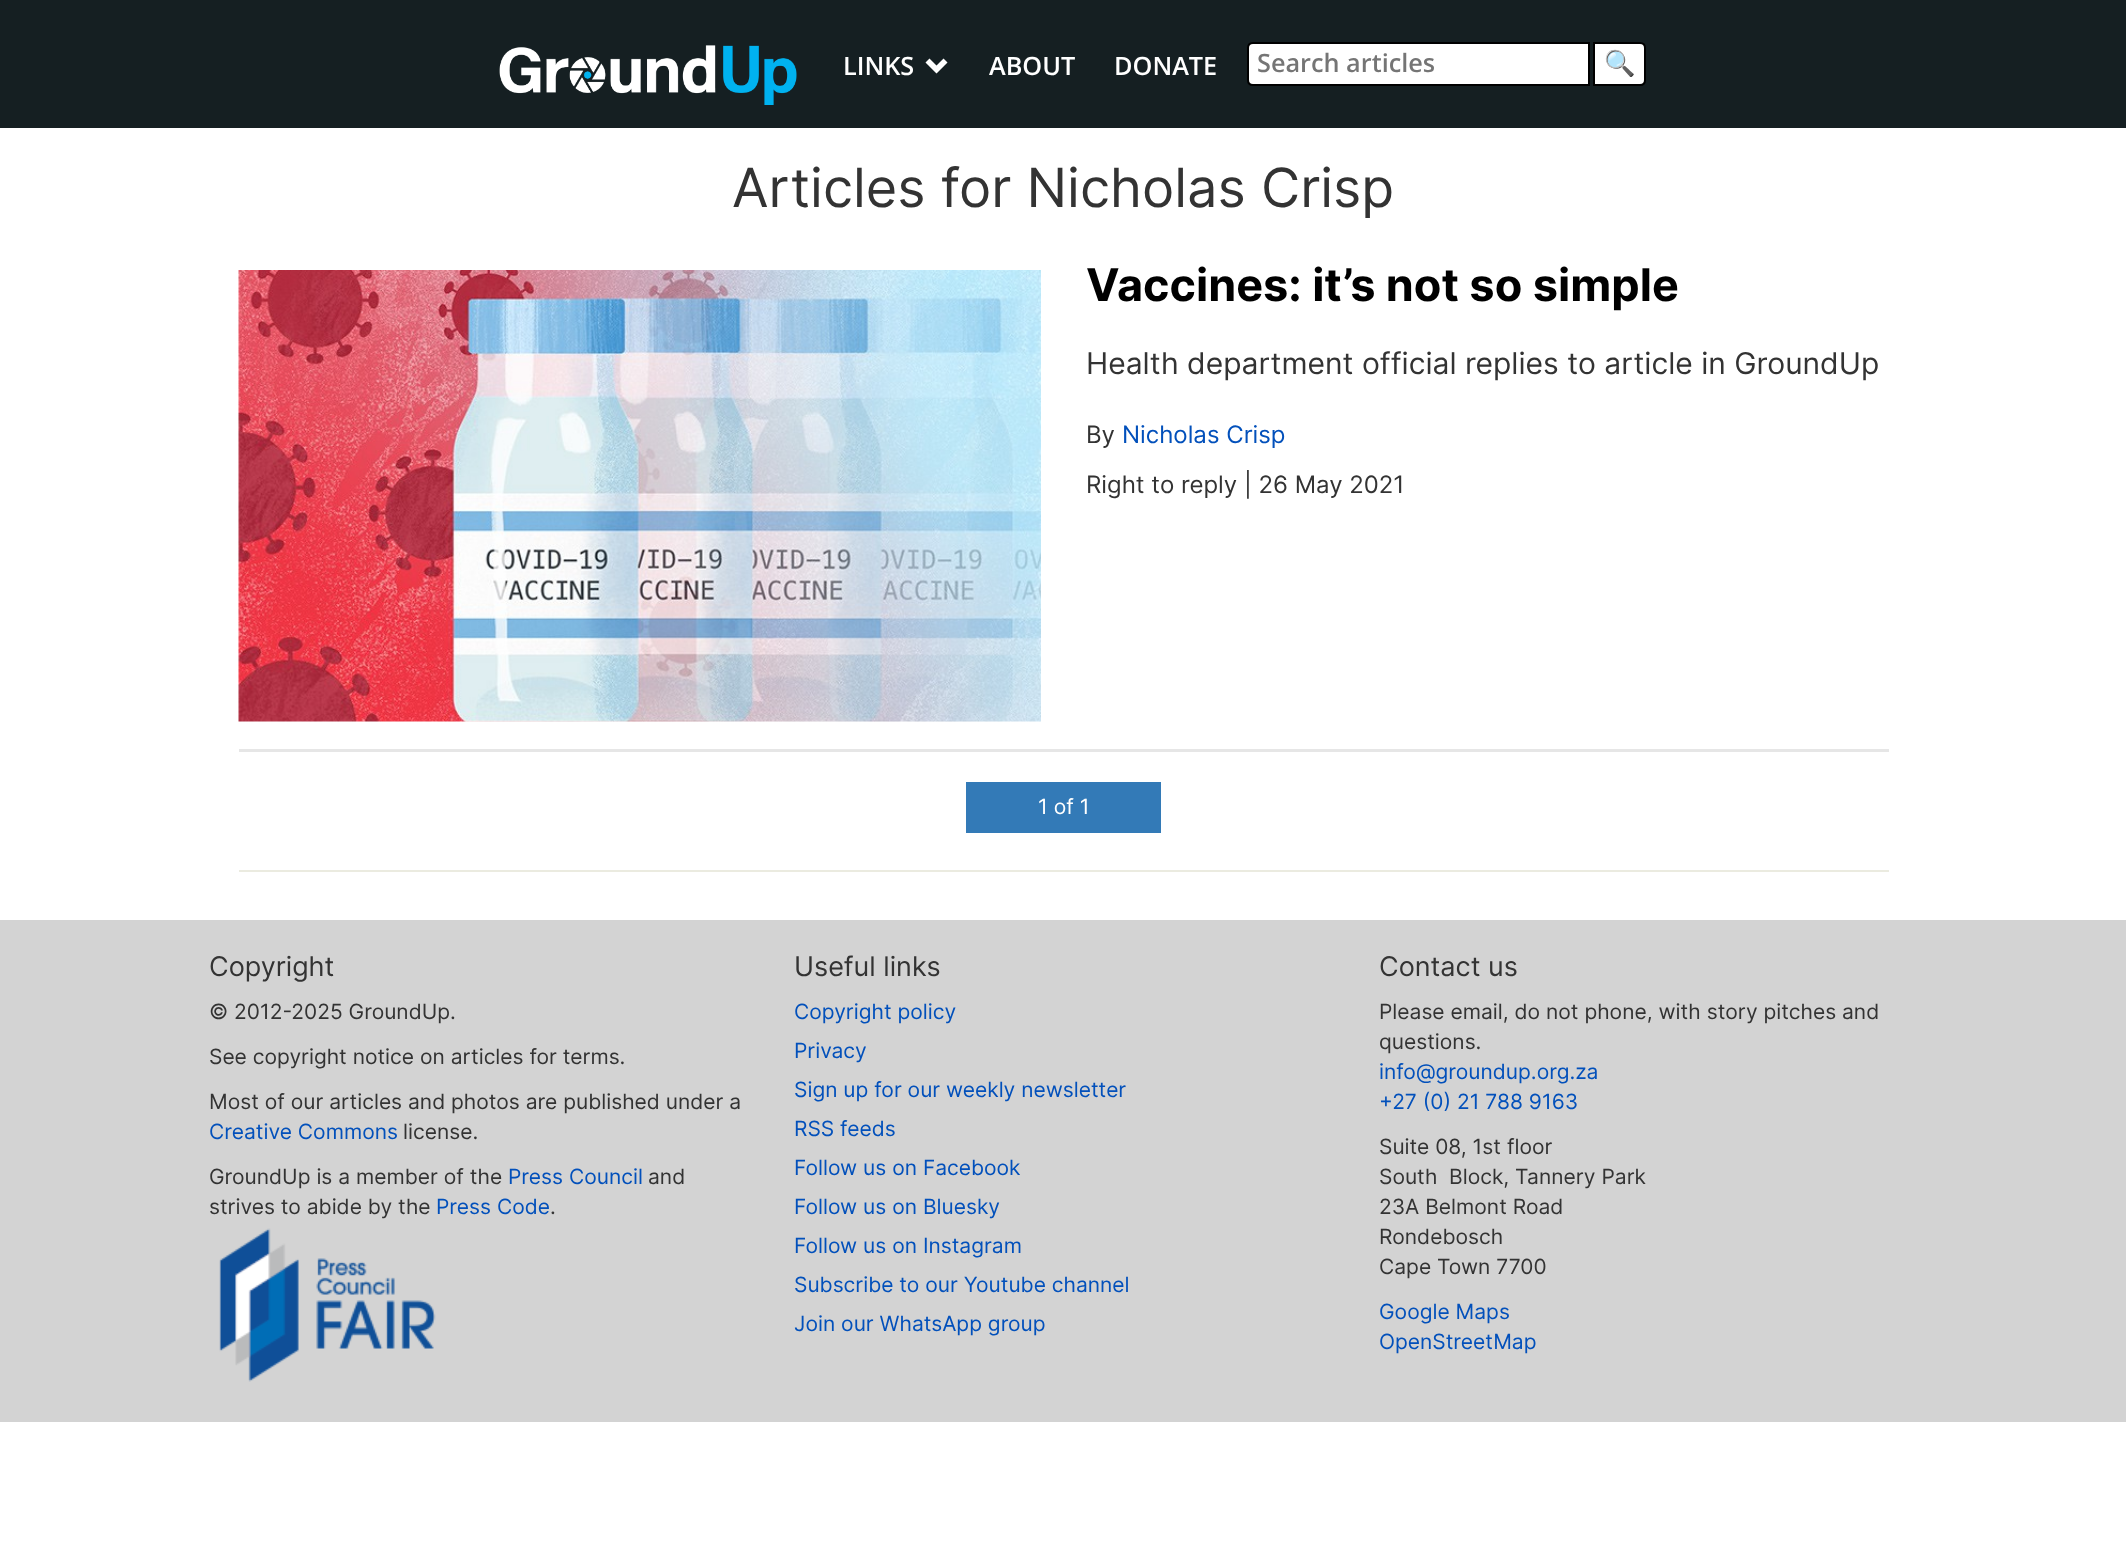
<svg xmlns="http://www.w3.org/2000/svg" width="2126" height="1560" viewBox="0 0 2126 1560">
  <rect width="100%" height="100%" fill="#ffffff"/>
  <rect x="0" y="0" width="2126" height="128" fill="#151f22"/>
  <image x="499" y="45" width="298" height="60" href="img1.png"/>
  <text x="843" y="75" font-family="Open Sans" font-size="25.25" font-weight="600" fill="#ffffff">LINKS</text>
  <path d="M947.5 62.5L936.5 73.5L925.5 62.5L929.5 58.5L936.5 65.5L943.5 58.5Z" fill="#ffffff"/>
  <text x="989" y="75" font-family="Open Sans" font-size="25.25" font-weight="600" fill="#ffffff">ABOUT</text>
  <text x="1114" y="75" font-family="Open Sans" font-size="25.25" font-weight="600" fill="#ffffff">DONATE</text>
  <path d="M1253 43H1589V85H1253C1250 85 1248 83 1248 80V48C1248 45 1250 43 1253 43Z" fill="#ffffff" stroke="#000000" stroke-width="2"/>
  <text x="1257" y="72" font-family="Open Sans" font-size="25.25" font-weight="600" fill="#757575">Search articles</text>
  <path d="M1594 43H1640C1643 43 1645 45 1645 48V80C1645 83 1643 85 1640 85H1594Z" fill="#ffffff" stroke="#000000" stroke-width="2"/>
  <text x="1604" y="72" font-family="Noto Color Emoji" font-size="25.25" font-weight="bold" fill="#000000">🔍</text>
  <text x="732" y="207" font-family="Inter" font-size="54" fill="#333333">Articles for Nicholas Crisp</text>
  <rect x="239" y="749" width="1650" height="3" fill="#e6e6e6"/>
  <image x="238" y="270" width="803" height="452" href="img2.png"/>
  <text x="1086" y="301" font-family="Inter" font-size="45" font-weight="bold" fill="#000000">Vaccines: it’s not so simple</text>
  <text x="1086" y="374" font-family="Inter" font-size="30" fill="#333333">Health department official replies to article in GroundUp</text>
  <text x="1086" y="443" font-family="Inter" font-size="24" fill="#333333">By</text>
  <text x="1122" y="443" font-family="Inter" font-size="24" fill="#0250bb">Nicholas Crisp</text>
  <text x="1086" y="493" font-family="Inter" font-size="24" fill="#333333">Right to reply | 26 May 2021</text>
  <rect x="239" y="870" width="1650" height="2" fill="#ebebe0"/>
  <rect x="966" y="782" width="195" height="51" fill="#337ab7"/>
  <text x="1038" y="814" font-family="Inter" font-size="21" fill="#ffffff">1 of 1</text>
  <rect x="0" y="920" width="2126" height="502" fill="#d3d3d3"/>
  <text x="209" y="976" font-family="Inter" font-size="27" fill="#333333">Copyright</text>
  <text x="209" y="1019" font-family="Inter" font-size="21" fill="#333333">© 2012-2025 GroundUp.</text>
  <text x="209" y="1064" font-family="Inter" font-size="21" fill="#333333">See copyright notice on articles for terms.</text>
  <text x="209" y="1109" font-family="Inter" font-size="21" fill="#333333">Most of our articles and photos are published under a</text>
  <text x="209" y="1139" font-family="Inter" font-size="21" fill="#0250bb">Creative Commons</text>
  <text x="403" y="1139" font-family="Inter" font-size="21" fill="#333333">license.</text>
  <text x="209" y="1184" font-family="Inter" font-size="21" fill="#333333">GroundUp is a member of the</text>
  <text x="508" y="1184" font-family="Inter" font-size="21" fill="#0250bb">Press Council</text>
  <text x="648" y="1184" font-family="Inter" font-size="21" fill="#333333">and</text>
  <text x="209" y="1214" font-family="Inter" font-size="21" fill="#333333">strives to abide by the</text>
  <text x="436" y="1214" font-family="Inter" font-size="21" fill="#0250bb">Press Code</text>
  <text x="550" y="1214" font-family="Inter" font-size="21" fill="#333333">.</text>
  <image x="219" y="1228" width="217" height="154" href="img3.png"/>
  <text x="794" y="976" font-family="Inter" font-size="27" fill="#333333">Useful links</text>
  <text x="794" y="1019" font-family="Inter" font-size="21" fill="#0250bb">Copyright policy</text>
  <text x="794" y="1058" font-family="Inter" font-size="21" fill="#0250bb">Privacy</text>
  <text x="794" y="1097" font-family="Inter" font-size="21" fill="#0250bb">Sign up for our weekly newsletter</text>
  <text x="794" y="1136" font-family="Inter" font-size="21" fill="#0250bb">RSS feeds</text>
  <text x="794" y="1175" font-family="Inter" font-size="21" fill="#0250bb">Follow us on Facebook</text>
  <text x="794" y="1214" font-family="Inter" font-size="21" fill="#0250bb">Follow us on Bluesky</text>
  <text x="794" y="1253" font-family="Inter" font-size="21" fill="#0250bb">Follow us on Instagram</text>
  <text x="794" y="1292" font-family="Inter" font-size="21" fill="#0250bb">Subscribe to our Youtube channel</text>
  <text x="794" y="1331" font-family="Inter" font-size="21" fill="#0250bb">Join our WhatsApp group</text>
  <text x="1379" y="976" font-family="Inter" font-size="27" fill="#333333">Contact us</text>
  <text x="1379" y="1019" font-family="Inter" font-size="21" fill="#333333">Please email, do not phone, with story pitches and</text>
  <text x="1379" y="1049" font-family="Inter" font-size="21" fill="#333333">questions.</text>
  <text x="1379" y="1079" font-family="Inter" font-size="21" fill="#0250bb">info@groundup.org.za</text>
  <text x="1379" y="1109" font-family="Inter" font-size="21" fill="#0250bb">+27 (0) 21 788 9163</text>
  <text x="1379" y="1154" font-family="Inter" font-size="21" fill="#333333">Suite 08, 1st floor</text>
  <text x="1379" y="1184" font-family="Inter" font-size="21" fill="#333333">South</text>
  <text x="1449" y="1184" font-family="Inter" font-size="21" fill="#333333">Block, Tannery Park</text>
  <text x="1379" y="1214" font-family="Inter" font-size="21" fill="#333333">23A Belmont Road</text>
  <text x="1379" y="1244" font-family="Inter" font-size="21" fill="#333333">Rondebosch</text>
  <text x="1379" y="1274" font-family="Inter" font-size="21" fill="#333333">Cape Town 7700</text>
  <text x="1379" y="1319" font-family="Inter" font-size="21" fill="#0250bb">Google Maps</text>
  <text x="1379" y="1349" font-family="Inter" font-size="21" fill="#0250bb">OpenStreetMap</text>
</svg>
